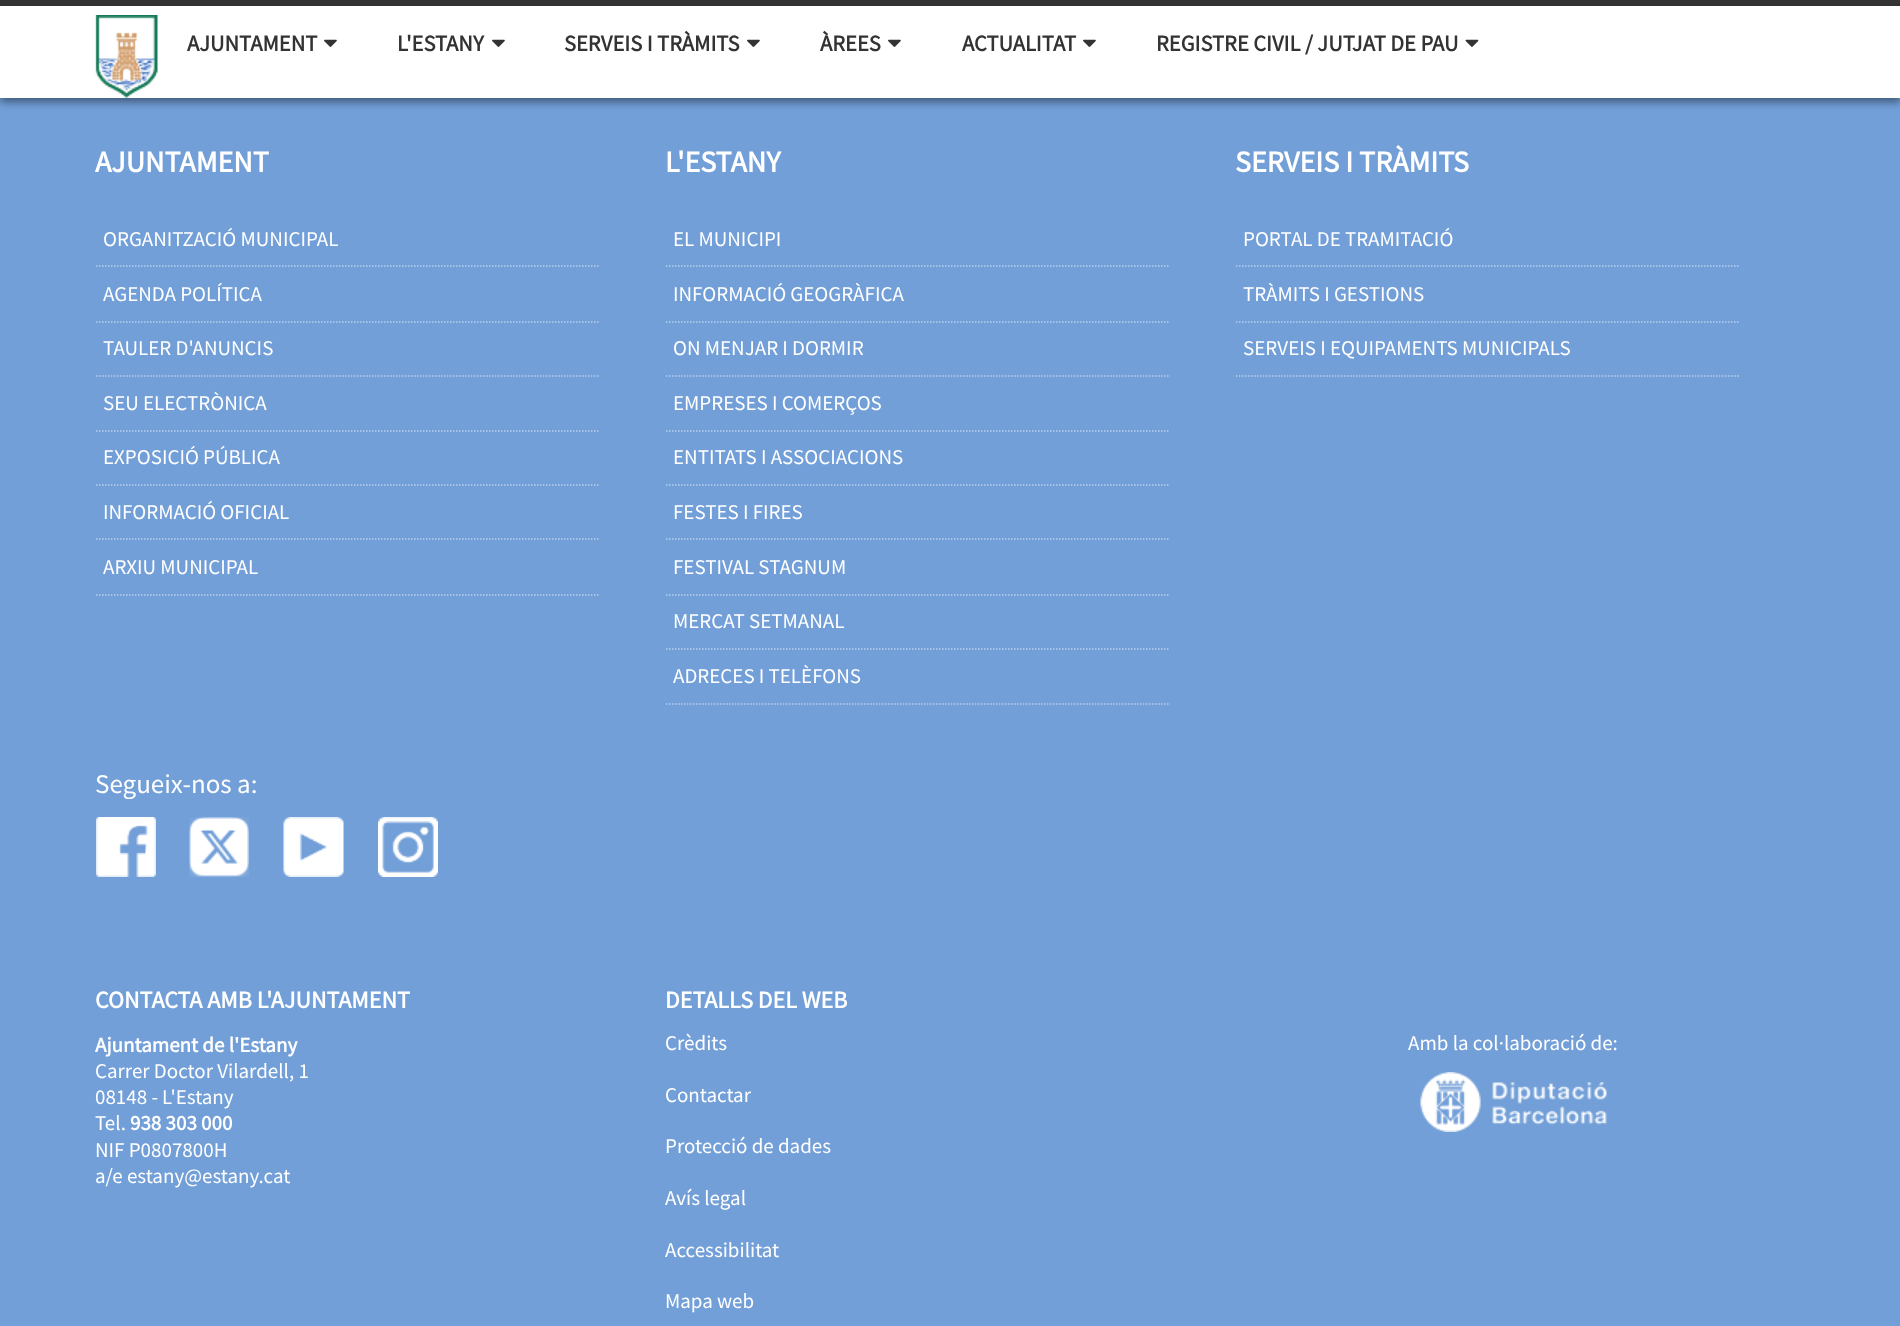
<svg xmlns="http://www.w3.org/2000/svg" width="1900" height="1326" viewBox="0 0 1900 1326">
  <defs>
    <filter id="blur1" x="-50%" y="-200%" width="200%" height="500%"><feGaussianBlur stdDeviation="4"/></filter>
  </defs>
  <rect width="100%" height="100%" fill="#729fd8"/>
  <rect x="0" y="0" width="1900" height="6" fill="#333333"/>
  <rect x="0" y="11" width="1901" height="91" fill="#000000" fill-opacity="0.45" filter="url(#blur1)"/>
  <rect x="0" y="6" width="1900" height="92" fill="#ffffff"/>
  <image x="95" y="15" width="63" height="83" href="img1.png"/>
  <text x="187" y="51" font-family="Source Sans Pro" font-size="22.5" font-weight="bold" fill="#333333">AJUNTAMENT</text>
  <image x="324" y="39" width="13" height="8" href="img2.png"/>
  <text x="397" y="51" font-family="Source Sans Pro" font-size="22.5" font-weight="bold" fill="#333333">L'ESTANY</text>
  <image x="492" y="39" width="13" height="8" href="img2.png"/>
  <text x="564" y="51" font-family="Source Sans Pro" font-size="22.5" font-weight="bold" fill="#333333">SERVEIS I TRÀMITS</text>
  <image x="747" y="39" width="13" height="8" href="img2.png"/>
  <text x="820" y="51" font-family="Source Sans Pro" font-size="22.5" font-weight="bold" fill="#333333">ÀREES</text>
  <image x="888" y="39" width="13" height="8" href="img2.png"/>
  <text x="962" y="51" font-family="Source Sans Pro" font-size="22.5" font-weight="bold" fill="#333333">ACTUALITAT</text>
  <image x="1083" y="39" width="13" height="8" href="img2.png"/>
  <text x="1156" y="51" font-family="Source Sans Pro" font-size="22.5" font-weight="bold" fill="#333333">REGISTRE CIVIL / JUTJAT DE PAU</text>
  <image x="1465" y="39" width="14" height="8" href="img3.png"/>
  <text x="95" y="172" font-family="Source Sans Pro" font-size="30" font-weight="bold" fill="#ffffff">AJUNTAMENT</text>
  <path d="M96 266H598.5" fill="none" stroke="#b9cfec" stroke-width="1.5" stroke-dasharray="1.5 1.5"/>
  <text x="103" y="246" font-family="Source Sans Pro" font-size="21" fill="#ffffff">ORGANITZACIÓ MUNICIPAL</text>
  <path d="M96 322H598.5" fill="none" stroke="#b9cfec" stroke-width="1.5" stroke-dasharray="1.5 1.5"/>
  <text x="103" y="301" font-family="Source Sans Pro" font-size="21" fill="#ffffff">AGENDA POLÍTICA</text>
  <path d="M96 376H598.5" fill="none" stroke="#b9cfec" stroke-width="1.5" stroke-dasharray="1.5 1.5"/>
  <text x="103" y="355" font-family="Source Sans Pro" font-size="21" fill="#ffffff">TAULER D'ANUNCIS</text>
  <path d="M96 431H598.5" fill="none" stroke="#b9cfec" stroke-width="1.5" stroke-dasharray="1.5 1.5"/>
  <text x="103" y="410" font-family="Source Sans Pro" font-size="21" fill="#ffffff">SEU ELECTRÒNICA</text>
  <path d="M96 485H598.5" fill="none" stroke="#b9cfec" stroke-width="1.5" stroke-dasharray="1.5 1.5"/>
  <text x="103" y="464" font-family="Source Sans Pro" font-size="21" fill="#ffffff">EXPOSICIÓ PÚBLICA</text>
  <path d="M96 539H598.5" fill="none" stroke="#b9cfec" stroke-width="1.5" stroke-dasharray="1.5 1.5"/>
  <text x="103" y="519" font-family="Source Sans Pro" font-size="21" fill="#ffffff">INFORMACIÓ OFICIAL</text>
  <path d="M96 595H598.5" fill="none" stroke="#b9cfec" stroke-width="1.5" stroke-dasharray="1.5 1.5"/>
  <text x="103" y="574" font-family="Source Sans Pro" font-size="21" fill="#ffffff">ARXIU MUNICIPAL</text>
  <text x="665" y="172" font-family="Source Sans Pro" font-size="30" font-weight="bold" fill="#ffffff">L'ESTANY</text>
  <path d="M666 266H1168.5" fill="none" stroke="#b9cfec" stroke-width="1.5" stroke-dasharray="1.5 1.5"/>
  <text x="673" y="246" font-family="Source Sans Pro" font-size="21" fill="#ffffff">EL MUNICIPI</text>
  <path d="M666 322H1168.5" fill="none" stroke="#b9cfec" stroke-width="1.5" stroke-dasharray="1.5 1.5"/>
  <text x="673" y="301" font-family="Source Sans Pro" font-size="21" fill="#ffffff">INFORMACIÓ GEOGRÀFICA</text>
  <path d="M666 376H1168.5" fill="none" stroke="#b9cfec" stroke-width="1.5" stroke-dasharray="1.5 1.5"/>
  <text x="673" y="355" font-family="Source Sans Pro" font-size="21" fill="#ffffff">ON MENJAR I DORMIR</text>
  <path d="M666 431H1168.5" fill="none" stroke="#b9cfec" stroke-width="1.5" stroke-dasharray="1.5 1.5"/>
  <text x="673" y="410" font-family="Source Sans Pro" font-size="21" fill="#ffffff">EMPRESES I COMERÇOS</text>
  <path d="M666 485H1168.5" fill="none" stroke="#b9cfec" stroke-width="1.5" stroke-dasharray="1.5 1.5"/>
  <text x="673" y="464" font-family="Source Sans Pro" font-size="21" fill="#ffffff">ENTITATS I ASSOCIACIONS</text>
  <path d="M666 539H1168.5" fill="none" stroke="#b9cfec" stroke-width="1.5" stroke-dasharray="1.5 1.5"/>
  <text x="673" y="519" font-family="Source Sans Pro" font-size="21" fill="#ffffff">FESTES I FIRES</text>
  <path d="M666 595H1168.5" fill="none" stroke="#b9cfec" stroke-width="1.5" stroke-dasharray="1.5 1.5"/>
  <text x="673" y="574" font-family="Source Sans Pro" font-size="21" fill="#ffffff">FESTIVAL STAGNUM</text>
  <path d="M666 649H1168.5" fill="none" stroke="#b9cfec" stroke-width="1.5" stroke-dasharray="1.5 1.5"/>
  <text x="673" y="628" font-family="Source Sans Pro" font-size="21" fill="#ffffff">MERCAT SETMANAL</text>
  <path d="M666 704H1168.5" fill="none" stroke="#b9cfec" stroke-width="1.5" stroke-dasharray="1.5 1.5"/>
  <text x="673" y="683" font-family="Source Sans Pro" font-size="21" fill="#ffffff">ADRECES I TELÈFONS</text>
  <text x="1235" y="172" font-family="Source Sans Pro" font-size="30" font-weight="bold" fill="#ffffff">SERVEIS I TRÀMITS</text>
  <path d="M1236 266H1738.5" fill="none" stroke="#b9cfec" stroke-width="1.5" stroke-dasharray="1.5 1.5"/>
  <text x="1243" y="246" font-family="Source Sans Pro" font-size="21" fill="#ffffff">PORTAL DE TRAMITACIÓ</text>
  <path d="M1236 322H1738.5" fill="none" stroke="#b9cfec" stroke-width="1.5" stroke-dasharray="1.5 1.5"/>
  <text x="1243" y="301" font-family="Source Sans Pro" font-size="21" fill="#ffffff">TRÀMITS I GESTIONS</text>
  <path d="M1236 376H1738.5" fill="none" stroke="#b9cfec" stroke-width="1.5" stroke-dasharray="1.5 1.5"/>
  <text x="1243" y="355" font-family="Source Sans Pro" font-size="21" fill="#ffffff">SERVEIS I EQUIPAMENTS MUNICIPALS</text>
  <text x="95" y="793" font-family="Source Sans Pro" font-size="27" fill="#ffffff">Segueix-nos a:</text>
  <image x="96" y="817" width="60" height="60" href="img4.png"/>
  <image x="189" y="817" width="60" height="60" href="img5.png"/>
  <image x="283" y="817" width="61" height="60" href="img6.png"/>
  <image x="378" y="817" width="60" height="60" href="img7.png"/>
  <text x="95" y="1008" font-family="Source Sans Pro" font-size="24" font-weight="bold" fill="#ffffff">CONTACTA AMB L'AJUNTAMENT</text>
  <text x="95" y="1052" font-family="Source Sans Pro" font-size="21" font-weight="bold" fill="#ffffff">Ajuntament de l'Estany</text>
  <text x="95" y="1078" font-family="Source Sans Pro" font-size="21" fill="#ffffff">Carrer Doctor Vilardell, 1</text>
  <text x="95" y="1104" font-family="Source Sans Pro" font-size="21" fill="#ffffff">08148 - L'Estany</text>
  <text x="95" y="1130" font-family="Source Sans Pro" font-size="21" fill="#ffffff">Tel.</text>
  <text x="130" y="1130" font-family="Source Sans Pro" font-size="21" font-weight="bold" fill="#ffffff">938 303 000</text>
  <text x="95" y="1157" font-family="Source Sans Pro" font-size="21" fill="#ffffff">NIF P0807800H</text>
  <text x="95" y="1183" font-family="Source Sans Pro" font-size="21" fill="#ffffff">a/e estany@estany.cat</text>
  <text x="665" y="1008" font-family="Source Sans Pro" font-size="24" font-weight="bold" fill="#ffffff">DETALLS DEL WEB</text>
  <text x="665" y="1050" font-family="Source Sans Pro" font-size="21" fill="#ffffff">Crèdits</text>
  <text x="665" y="1102" font-family="Source Sans Pro" font-size="21" fill="#ffffff">Contactar</text>
  <text x="665" y="1153" font-family="Source Sans Pro" font-size="21" fill="#ffffff">Protecció de dades</text>
  <text x="665" y="1205" font-family="Source Sans Pro" font-size="21" fill="#ffffff">Avís legal</text>
  <text x="665" y="1257" font-family="Source Sans Pro" font-size="21" fill="#ffffff">Accessibilitat</text>
  <text x="665" y="1308" font-family="Source Sans Pro" font-size="21" fill="#ffffff">Mapa web</text>
  <text x="1408" y="1050" font-family="Source Sans Pro" font-size="21" fill="#ffffff">Amb la col·laboració de:</text>
  <image x="1420" y="1072" width="187" height="60" href="img8.png"/>
</svg>
